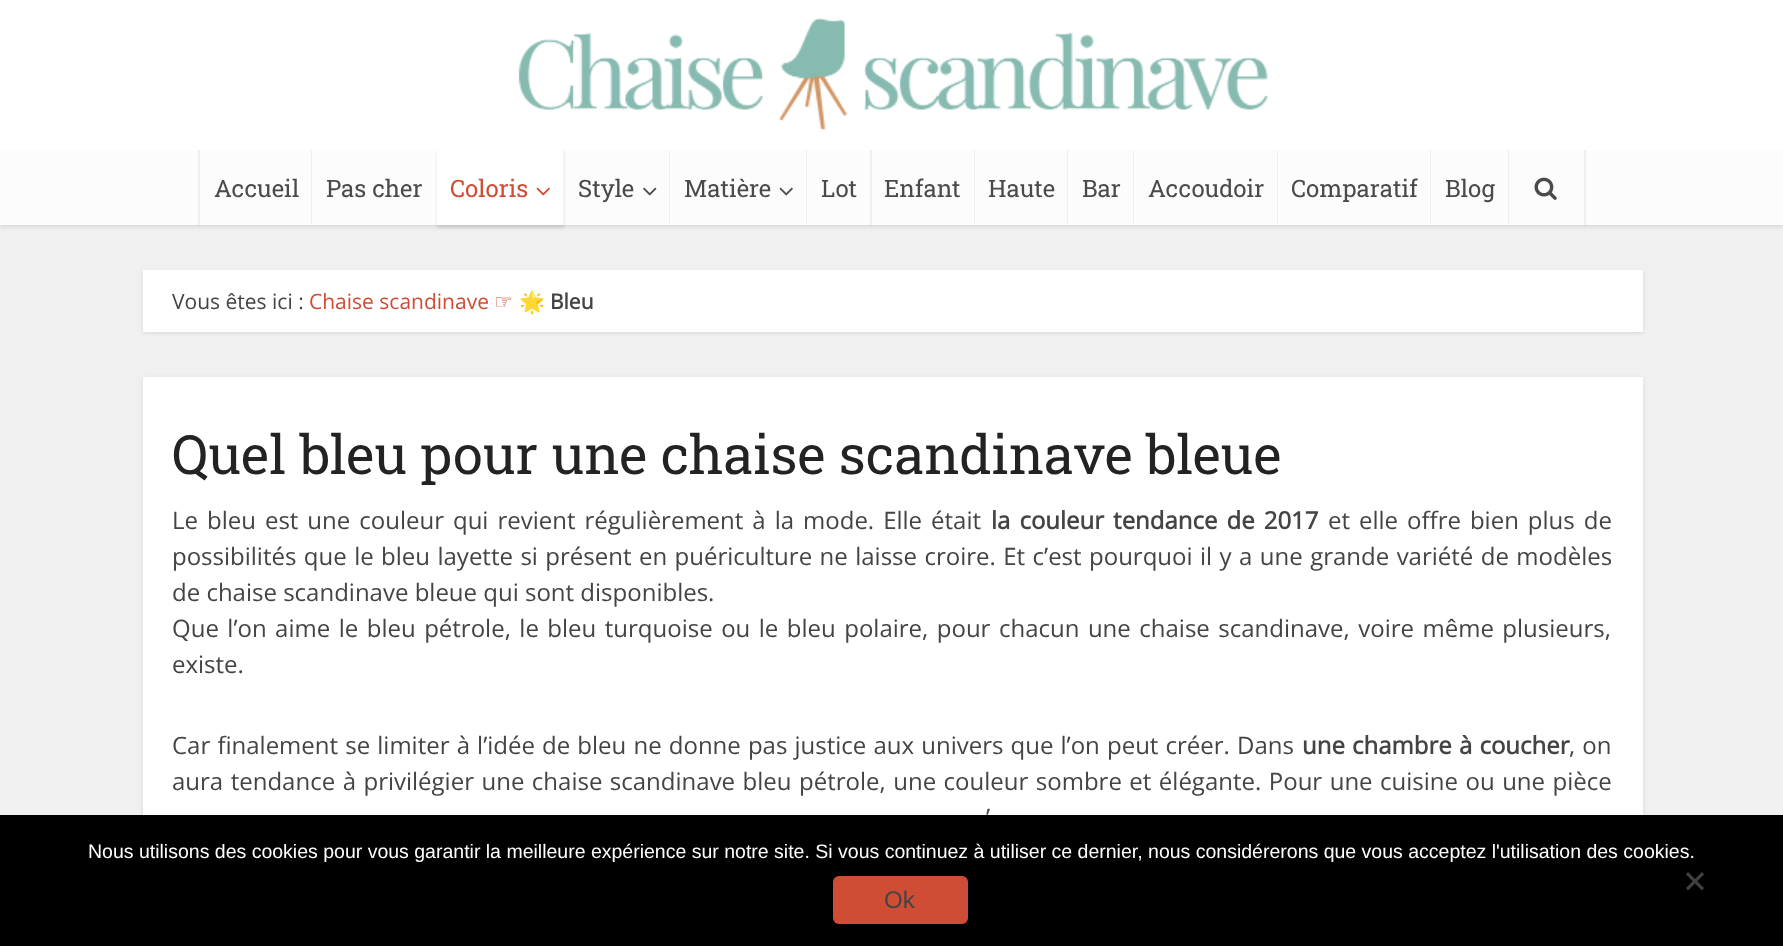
<svg xmlns="http://www.w3.org/2000/svg" width="1783" height="946" viewBox="0 0 1783 946">
  <defs>
    <filter id="blur1" x="-50%" y="-200%" width="200%" height="500%"><feGaussianBlur stdDeviation="2"/></filter>
    <filter id="blur2" x="-50%" y="-200%" width="200%" height="500%"><feGaussianBlur stdDeviation="1.5"/></filter>
  </defs>
  <rect width="100%" height="100%" fill="#f0f0f0"/>
  <rect x="0" y="2" width="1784" height="225" fill="#000000" fill-opacity="0.1" filter="url(#blur1)"/>
  <rect x="0" y="0" width="1783" height="150" fill="#ffffff"/>
  <image x="518" y="18" width="750" height="113" href="img1.png"/>
  <rect x="0" y="150" width="1783" height="75" fill="#fcfcfc"/>
  <rect x="198" y="150" width="2" height="75" fill="#efefef"/>
  <text x="214" y="197" font-family="Roboto Slab" font-size="24" fill="#4a4a4a">Accueil</text>
  <rect x="311" y="150" width="1" height="75" fill="#efefef"/>
  <text x="326" y="197" font-family="Roboto Slab" font-size="24" fill="#4a4a4a">Pas cher</text>
  <rect x="437" y="153" width="127" height="75" fill="#000000" fill-opacity="0.1" filter="url(#blur2)"/>
  <rect x="437" y="150" width="126" height="75" fill="#ffffff"/>
  <text x="450" y="197" font-family="Roboto Slab" font-size="24" fill="#cf4d35">Coloris</text>
  <image x="536" y="187" width="14" height="9" href="img2.png"/>
  <rect x="563" y="150" width="1" height="75" fill="#f2f2f2"/>
  <text x="578" y="197" font-family="Roboto Slab" font-size="24" fill="#4a4a4a">Style</text>
  <image x="643" y="187" width="14" height="9" href="img3.png"/>
  <rect x="669" y="150" width="1" height="75" fill="#efefef"/>
  <text x="684" y="197" font-family="Roboto Slab" font-size="24" fill="#4a4a4a">Matière</text>
  <image x="779" y="187" width="14" height="9" href="img4.png"/>
  <rect x="806" y="150" width="1" height="75" fill="#efefef"/>
  <text x="821" y="197" font-family="Roboto Slab" font-size="24" fill="#4a4a4a">Lot</text>
  <rect x="870" y="150" width="2" height="75" fill="#efefef"/>
  <text x="884" y="197" font-family="Roboto Slab" font-size="24" fill="#4a4a4a">Enfant</text>
  <rect x="974" y="150" width="1" height="75" fill="#efefef"/>
  <text x="988" y="197" font-family="Roboto Slab" font-size="24" fill="#4a4a4a">Haute</text>
  <rect x="1067" y="150" width="1" height="75" fill="#efefef"/>
  <text x="1082" y="197" font-family="Roboto Slab" font-size="24" fill="#4a4a4a">Bar</text>
  <rect x="1133" y="150" width="1" height="75" fill="#efefef"/>
  <text x="1148" y="197" font-family="Roboto Slab" font-size="24" fill="#4a4a4a">Accoudoir</text>
  <rect x="1277" y="150" width="1" height="75" fill="#efefef"/>
  <text x="1291" y="197" font-family="Roboto Slab" font-size="24" fill="#4a4a4a">Comparatif</text>
  <rect x="1430" y="150" width="1" height="75" fill="#efefef"/>
  <text x="1445" y="197" font-family="Roboto Slab" font-size="24" fill="#4a4a4a">Blog</text>
  <rect x="1584" y="150" width="2" height="75" fill="#efefef"/>
  <rect x="1508" y="150" width="1" height="75" fill="#efefef"/>
  <image x="1534" y="177" width="23" height="23" href="img5.png"/>
  <rect x="143" y="272" width="1500" height="61" fill="#000000" fill-opacity="0.1" filter="url(#blur1)"/>
  <rect x="143" y="270" width="1500" height="62" fill="#ffffff"/>
  <text x="172" y="309" font-family="Open Sans" font-size="21" fill="#444444">Vous êtes ici :</text>
  <text x="309" y="309" font-family="Open Sans" font-size="21" fill="#cf4d35">Chaise scandinave</text>
  <text x="494" y="309" font-family="DejaVu Sans" font-size="21" fill="#cf4d35">☞</text>
  <text x="519" y="309" font-family="Noto Color Emoji" font-size="21" fill="#444444">🌟</text>
  <text x="550" y="309" font-family="Open Sans" font-size="21" font-weight="bold" fill="#444444">Bleu</text>
  <rect x="143" y="378" width="1500" height="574" fill="#000000" fill-opacity="0.1" filter="url(#blur1)"/>
  <rect x="143" y="377" width="1500" height="438" fill="#ffffff"/>
  <text x="172" y="474" font-family="Roboto Slab" font-size="54" fill="#232323">Quel bleu pour une chaise scandinave bleue</text>
  <text x="172" y="529" word-spacing="2.75" font-family="Open Sans" font-size="24" fill="#444444">Le bleu est une couleur qui revient régulièrement à la mode. Elle était</text>
  <text x="991" y="529" word-spacing="2.75" font-family="Open Sans" font-size="24" font-weight="bold" fill="#444444">la couleur tendance de 2017</text>
  <text x="1328" y="529" word-spacing="2.75" font-family="Open Sans" font-size="24" fill="#444444">et elle offre bien plus de</text>
  <text x="172" y="565" word-spacing="1.2" font-family="Open Sans" font-size="24" fill="#444444">possibilités que le bleu layette si présent en puériculture ne laisse croire. Et c’est pourquoi il y a une grande variété de modèles</text>
  <text x="172" y="601" font-family="Open Sans" font-size="24" fill="#444444">de chaise scandinave bleue qui sont disponibles.</text>
  <text x="172" y="637" word-spacing="2.25" font-family="Open Sans" font-size="24" fill="#444444">Que l’on aime le bleu pétrole, le bleu turquoise ou le bleu polaire, pour chacun une chaise scandinave, voire même plusieurs,</text>
  <text x="172" y="673" font-family="Open Sans" font-size="24" fill="#444444">existe.</text>
  <text x="172" y="754" word-spacing="0.9" font-family="Open Sans" font-size="24" fill="#444444">Car finalement se limiter à l’idée de bleu ne donne pas justice aux univers que l’on peut créer. Dans</text>
  <text x="1302" y="754" word-spacing="0.9" font-family="Open Sans" font-size="24" font-weight="bold" fill="#444444">une chambre à coucher</text>
  <text x="1569" y="754" word-spacing="0.9" font-family="Open Sans" font-size="24" fill="#444444">, on</text>
  <text x="172" y="790" word-spacing="1.25" font-family="Open Sans" font-size="24" fill="#444444">aura tendance à privilégier une chaise scandinave bleu pétrole, une couleur sombre et élégante. Pour une cuisine ou une pièce</text>
  <text x="986" y="826" font-family="Open Sans" font-size="24" fill="#444444">’</text>
  <rect x="0" y="815" width="1783" height="131" fill="#000000"/>
  <text x="88" y="858" font-family="Liberation Sans" font-size="19.5" fill="#ffffff">Nous utilisons des cookies pour vous garantir la meilleure expérience sur notre site. Si vous continuez à utiliser ce dernier, nous considérerons que vous acceptez l'utilisation des cookies.</text>
  <path d="M1702 872L1704 874.5L1688 890.5L1686 888Z" fill="#404040"/>
  <path d="M1686 874.5L1688 872L1704 888L1702 890.5Z" fill="#404040"/>
  <rect x="833" y="876" width="135" height="48" rx="6" fill="#cf4d35"/>
  <text x="884" y="908" font-family="Liberation Sans" font-size="24" fill="#444444">Ok</text>
</svg>
